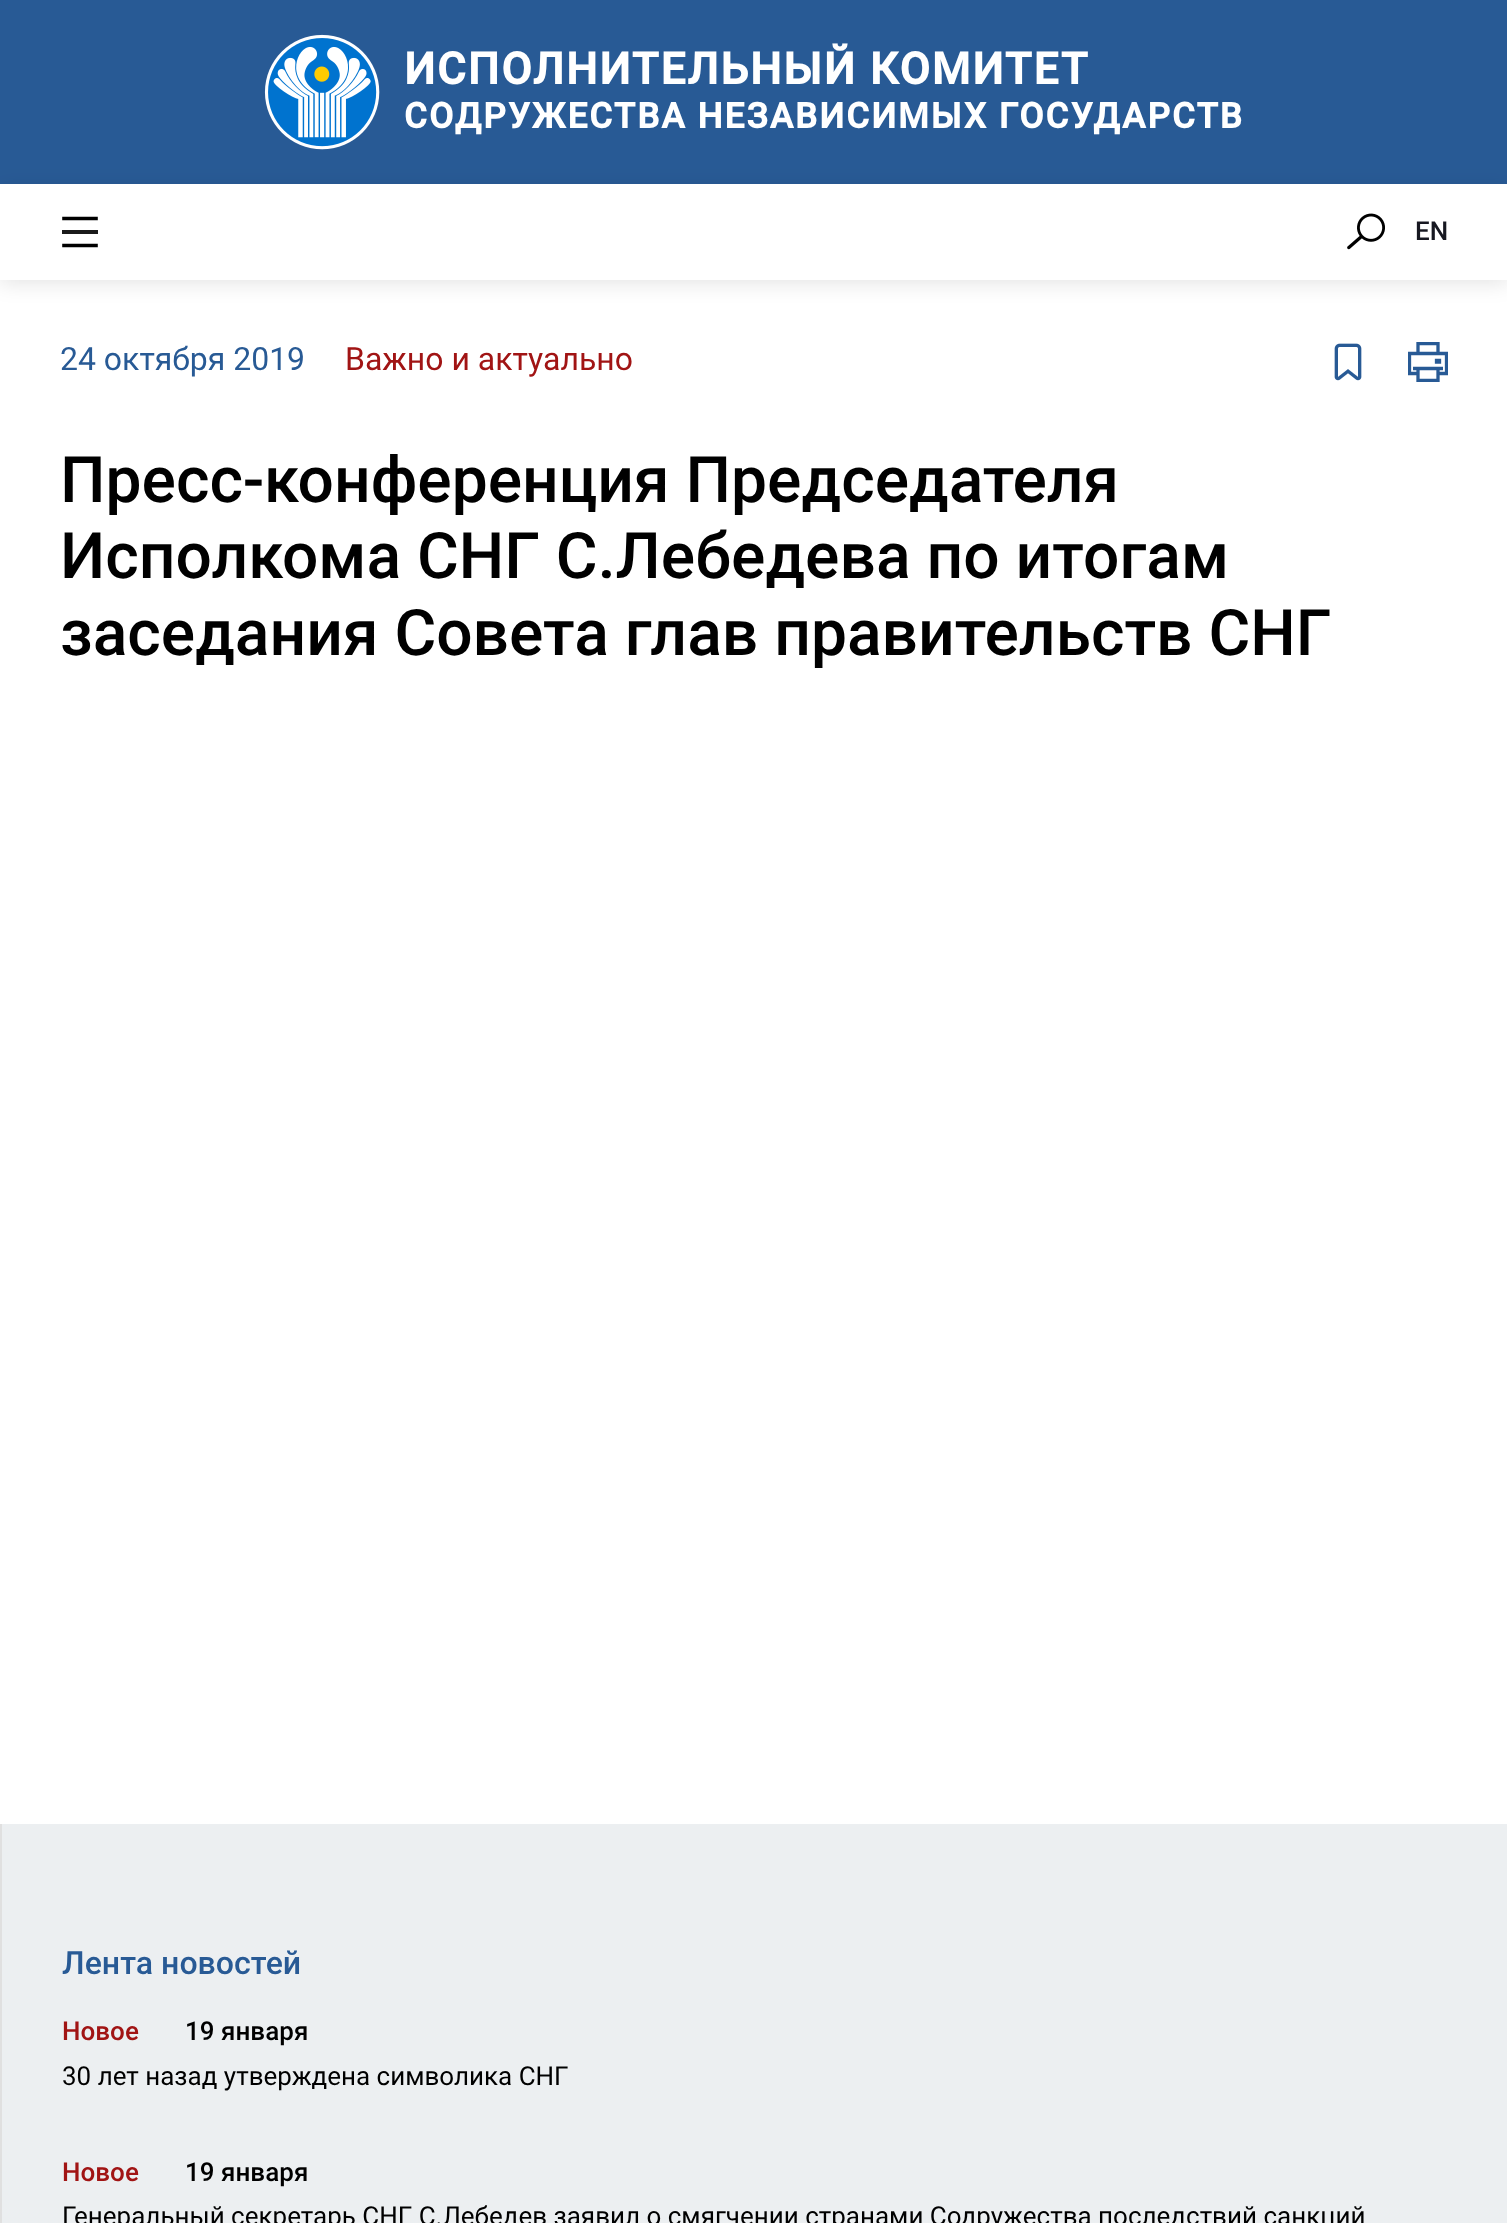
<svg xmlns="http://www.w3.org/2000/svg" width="1507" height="2223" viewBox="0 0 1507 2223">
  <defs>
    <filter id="blur1" x="-50%" y="-200%" width="200%" height="500%"><feGaussianBlur stdDeviation="10"/></filter>
    <clipPath id="clip1"><rect x="1408" y="342" width="40" height="40"/></clipPath>
  </defs>
  <rect width="100%" height="100%" fill="#285a95"/>
  <image x="264" y="34" width="116" height="116" href="img1.png"/>
  <text x="404" y="84" font-family="Roboto" font-size="44" font-weight="bold" letter-spacing="2" fill="#ffffff">ИСПОЛНИТЕЛЬНЫЙ КОМИТЕТ</text>
  <text x="404" y="128" font-family="Roboto" font-size="35.2" font-weight="bold" letter-spacing="2" fill="#ffffff">СОДРУЖЕСТВА НЕЗАВИСИМЫХ ГОСУДАРСТВ</text>
  <rect x="0" y="280" width="1507" height="1544" fill="#ffffff"/>
  <rect x="0" y="188" width="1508" height="96" fill="#000000" fill-opacity="0.1" filter="url(#blur1)"/>
  <rect x="0" y="184" width="1507" height="96" fill="#ffffff"/>
  <path d="M64 218.5H96" fill="none" stroke="#000000" stroke-width="3.6" stroke-linecap="square"/>
  <rect x="62" y="230" width="36" height="4" fill="#1a1a1a"/>
  <path d="M64 245.5H96" fill="none" stroke="#000000" stroke-width="3.6" stroke-linecap="square"/>
  <image x="1347" y="213" width="38" height="37" href="img2.png"/>
  <text x="1415" y="240" font-family="Roboto" font-size="26" font-weight="500" fill="#171821">EN</text>
  <text x="60" y="370" font-family="Roboto" font-size="32" fill="#285a95">24 октября 2019</text>
  <text x="345" y="370" font-family="Roboto" font-size="32" fill="#a11414">Важно и актуально</text>
  <image x="1334" y="343" width="28" height="38" href="img3.png"/>
  <g clip-path="url(#clip1)">
    <path d="M1418 373.5H1409.5V353.5H1446.5V373.5H1438M1413 368.5H1443M1418 368.5V380.5H1438V368.5M1438 353.5V343.5H1418V353.5M1436.5 362H1439.5V360.5H1436.5Z" fill="none" stroke="#285a95" stroke-width="3.3"/>
  </g>
  <text x="60" y="502" font-family="Roboto" font-size="64" font-weight="500" fill="#000000">Пресс-конференция Председателя</text>
  <text x="60" y="578" font-family="Roboto" font-size="64" font-weight="500" fill="#000000">Исполкома СНГ С.Лебедева по итогам</text>
  <text x="60" y="655" font-family="Roboto" font-size="64" font-weight="500" fill="#000000">заседания Совета глав правительств СНГ</text>
  <rect x="2" y="1824" width="1505" height="399" fill="#eceff1"/>
  <rect x="0" y="1824" width="2" height="399" fill="#e0e0e0"/>
  <text x="62" y="1974" font-family="Roboto" font-size="32" font-weight="500" fill="#285a95">Лента новостей</text>
  <text x="62" y="2040" font-family="Roboto" font-size="26" font-weight="500" fill="#a11414">Новое</text>
  <text x="185" y="2040" font-family="Roboto" font-size="26" font-weight="500" fill="#000000">19 января</text>
  <text x="62" y="2085" font-family="Roboto" font-size="26" fill="#000000">30 лет назад утверждена символика СНГ</text>
  <text x="62" y="2181" font-family="Roboto" font-size="26" font-weight="500" fill="#a11414">Новое</text>
  <text x="185" y="2181" font-family="Roboto" font-size="26" font-weight="500" fill="#000000">19 января</text>
  <text x="62" y="2225" font-family="Roboto" font-size="26" fill="#000000">Генеральный секретарь СНГ С.Лебедев заявил о смягчении странами Содружества последствий санкций</text>
</svg>
